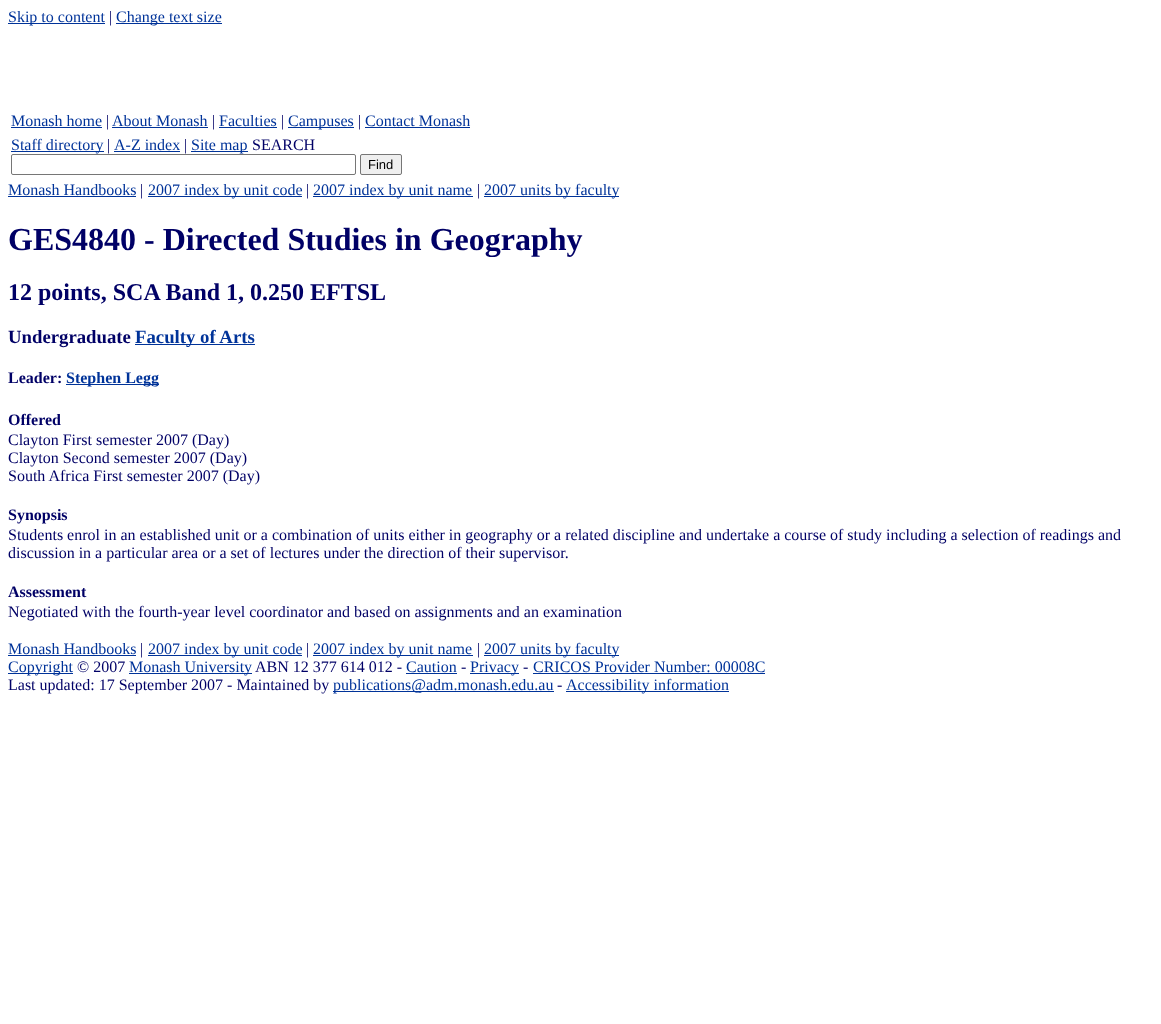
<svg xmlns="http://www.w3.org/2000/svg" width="1161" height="1024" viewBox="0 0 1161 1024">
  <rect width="100%" height="100%" fill="#ffffff"/>
  <rect x="8" y="23" width="97" height="1" fill="#003399"/>
  <text x="8" y="22" font-family="Liberation Serif" font-size="16" fill="#003399">Skip to content</text>
  <text x="109" y="22" font-family="Liberation Serif" font-size="16" fill="#000066">|</text>
  <rect x="116" y="23" width="106" height="1" fill="#003399"/>
  <text x="116" y="22" font-family="Liberation Serif" font-size="16" fill="#003399">Change text size</text>
  <text x="11" y="126" font-family="Liberation Serif" font-size="16" fill="#003399">Monash home</text>
  <rect x="11" y="127" width="91" height="1" fill="#003399"/>
  <text x="106" y="126" font-family="Liberation Serif" font-size="16" fill="#000066">|</text>
  <text x="112" y="126" font-family="Liberation Serif" font-size="16" fill="#003399">About Monash</text>
  <rect x="112" y="127" width="96" height="1" fill="#003399"/>
  <text x="212" y="126" font-family="Liberation Serif" font-size="16" fill="#000066">|</text>
  <text x="219" y="126" font-family="Liberation Serif" font-size="16" fill="#003399">Faculties</text>
  <rect x="219" y="127" width="58" height="1" fill="#003399"/>
  <text x="281" y="126" font-family="Liberation Serif" font-size="16" fill="#000066">|</text>
  <rect x="288" y="127" width="66" height="1" fill="#003399"/>
  <text x="288" y="126" font-family="Liberation Serif" font-size="16" fill="#003399">Campuses</text>
  <text x="358" y="126" font-family="Liberation Serif" font-size="16" fill="#000066">|</text>
  <text x="365" y="126" font-family="Liberation Serif" font-size="16" fill="#003399">Contact Monash</text>
  <rect x="365" y="127" width="105" height="1" fill="#003399"/>
  <rect x="11" y="151" width="93" height="1" fill="#003399"/>
  <text x="11" y="150" font-family="Liberation Serif" font-size="16" fill="#003399">Staff directory</text>
  <text x="107" y="150" font-family="Liberation Serif" font-size="16" fill="#000066">|</text>
  <text x="114" y="150" font-family="Liberation Serif" font-size="16" fill="#003399">A-Z index</text>
  <rect x="114" y="151" width="66" height="1" fill="#003399"/>
  <text x="184" y="150" font-family="Liberation Serif" font-size="16" fill="#000066">|</text>
  <rect x="191" y="151" width="57" height="1" fill="#003399"/>
  <text x="191" y="150" font-family="Liberation Serif" font-size="16" fill="#003399">Site map</text>
  <text x="252" y="150" font-family="Liberation Serif" font-size="16" fill="#000066">SEARCH</text>
  <rect x="11.5" y="154.5" width="344" height="20" rx="1.5" fill="none" stroke="#767676"/>
  <rect x="360.5" y="154.5" width="41" height="20" rx="1.5" fill="#efefef" stroke="#767676"/>
  <text x="368" y="169" font-family="Liberation Sans" font-size="13" fill="#000000">Find</text>
  <text x="8" y="195" font-family="Liberation Serif" font-size="16" fill="#003399">Monash Handbooks</text>
  <rect x="8" y="196" width="128" height="1" fill="#003399"/>
  <text x="140" y="195" font-family="Liberation Serif" font-size="16" fill="#000066">|</text>
  <rect x="148" y="196" width="154" height="1" fill="#003399"/>
  <text x="148" y="195" font-family="Liberation Serif" font-size="16" fill="#003399">2007 index by unit code</text>
  <text x="306" y="195" font-family="Liberation Serif" font-size="16" fill="#000066">|</text>
  <rect x="313" y="196" width="160" height="1" fill="#003399"/>
  <text x="313" y="195" font-family="Liberation Serif" font-size="16" fill="#003399">2007 index by unit name</text>
  <text x="477" y="195" font-family="Liberation Serif" font-size="16" fill="#000066">|</text>
  <rect x="484" y="196" width="135" height="1" fill="#003399"/>
  <text x="484" y="195" font-family="Liberation Serif" font-size="16" fill="#003399">2007 units by faculty</text>
  <text x="8" y="250" font-family="Liberation Serif" font-size="32" font-weight="bold" fill="#000066">GES4840 - Directed Studies in Geography</text>
  <text x="8" y="300" font-family="Liberation Serif" font-size="24" font-weight="bold" fill="#000066">12 points, SCA Band 1, 0.250 EFTSL</text>
  <text x="8" y="343" font-family="Liberation Serif" font-size="18.75" font-weight="bold" fill="#000066">Undergraduate</text>
  <rect x="135" y="344" width="120" height="1" fill="#003399"/>
  <text x="135" y="343" font-family="Liberation Serif" font-size="18.75" font-weight="bold" fill="#003399">Faculty of Arts</text>
  <text x="8" y="383" font-family="Liberation Serif" font-size="16" font-weight="bold" fill="#000066">Leader:</text>
  <rect x="66" y="384" width="93" height="1" fill="#003399"/>
  <text x="66" y="383" font-family="Liberation Serif" font-size="16" font-weight="bold" fill="#003399">Stephen Legg</text>
  <text x="8" y="425" font-family="Liberation Serif" font-size="16" font-weight="bold" fill="#000066">Offered</text>
  <text x="8" y="445" font-family="Liberation Serif" font-size="16" fill="#000066">Clayton First semester 2007 (Day)</text>
  <text x="8" y="463" font-family="Liberation Serif" font-size="16" fill="#000066">Clayton Second semester 2007 (Day)</text>
  <text x="8" y="481" font-family="Liberation Serif" font-size="16" fill="#000066">South Africa First semester 2007 (Day)</text>
  <text x="8" y="520" font-family="Liberation Serif" font-size="16" font-weight="bold" fill="#000066">Synopsis</text>
  <text x="8" y="540" font-family="Liberation Serif" font-size="16" fill="#000066">Students enrol in an established unit or a combination of units either in geography or a related discipline and undertake a course of study including a selection of readings and</text>
  <text x="8" y="558" font-family="Liberation Serif" font-size="16" fill="#000066">discussion in a particular area or a set of lectures under the direction of their supervisor.</text>
  <text x="8" y="597" font-family="Liberation Serif" font-size="16" font-weight="bold" fill="#000066">Assessment</text>
  <text x="8" y="617" font-family="Liberation Serif" font-size="16" fill="#000066">Negotiated with the fourth-year level coordinator and based on assignments and an examination</text>
  <text x="8" y="654" font-family="Liberation Serif" font-size="16" fill="#003399">Monash Handbooks</text>
  <rect x="8" y="655" width="128" height="1" fill="#003399"/>
  <text x="140" y="654" font-family="Liberation Serif" font-size="16" fill="#000066">|</text>
  <rect x="148" y="655" width="154" height="1" fill="#003399"/>
  <text x="148" y="654" font-family="Liberation Serif" font-size="16" fill="#003399">2007 index by unit code</text>
  <text x="306" y="654" font-family="Liberation Serif" font-size="16" fill="#000066">|</text>
  <rect x="313" y="655" width="160" height="1" fill="#003399"/>
  <text x="313" y="654" font-family="Liberation Serif" font-size="16" fill="#003399">2007 index by unit name</text>
  <text x="477" y="654" font-family="Liberation Serif" font-size="16" fill="#000066">|</text>
  <rect x="484" y="655" width="135" height="1" fill="#003399"/>
  <text x="484" y="654" font-family="Liberation Serif" font-size="16" fill="#003399">2007 units by faculty</text>
  <rect x="8" y="673" width="65" height="1" fill="#003399"/>
  <text x="8" y="672" font-family="Liberation Serif" font-size="16" fill="#003399">Copyright</text>
  <text x="77" y="672" font-family="Liberation Serif" font-size="16" fill="#000066">© 2007</text>
  <rect x="129" y="673" width="123" height="1" fill="#003399"/>
  <text x="129" y="672" font-family="Liberation Serif" font-size="16" fill="#003399">Monash University</text>
  <text x="255" y="672" font-family="Liberation Serif" font-size="16" fill="#000066">ABN 12 377 614 012 -</text>
  <text x="406" y="672" font-family="Liberation Serif" font-size="16" fill="#003399">Caution</text>
  <rect x="406" y="673" width="51" height="1" fill="#003399"/>
  <text x="461" y="672" font-family="Liberation Serif" font-size="16" fill="#000066">-</text>
  <rect x="470" y="673" width="49" height="1" fill="#003399"/>
  <text x="470" y="672" font-family="Liberation Serif" font-size="16" fill="#003399">Privacy</text>
  <text x="523" y="672" font-family="Liberation Serif" font-size="16" fill="#000066">-</text>
  <text x="533" y="672" font-family="Liberation Serif" font-size="16" fill="#003399">CRICOS Provider Number: 00008C</text>
  <rect x="533" y="673" width="232" height="1" fill="#003399"/>
  <text x="8" y="690" font-family="Liberation Serif" font-size="16" fill="#000066">Last updated: 17 September 2007 - Maintained by</text>
  <rect x="333" y="691" width="221" height="1" fill="#003399"/>
  <text x="333" y="690" font-family="Liberation Serif" font-size="16" fill="#003399">publications@adm.monash.edu.au</text>
  <text x="557" y="690" font-family="Liberation Serif" font-size="16" fill="#000066">-</text>
  <rect x="566" y="691" width="163" height="1" fill="#003399"/>
  <text x="566" y="690" font-family="Liberation Serif" font-size="16" fill="#003399">Accessibility information</text>
</svg>
